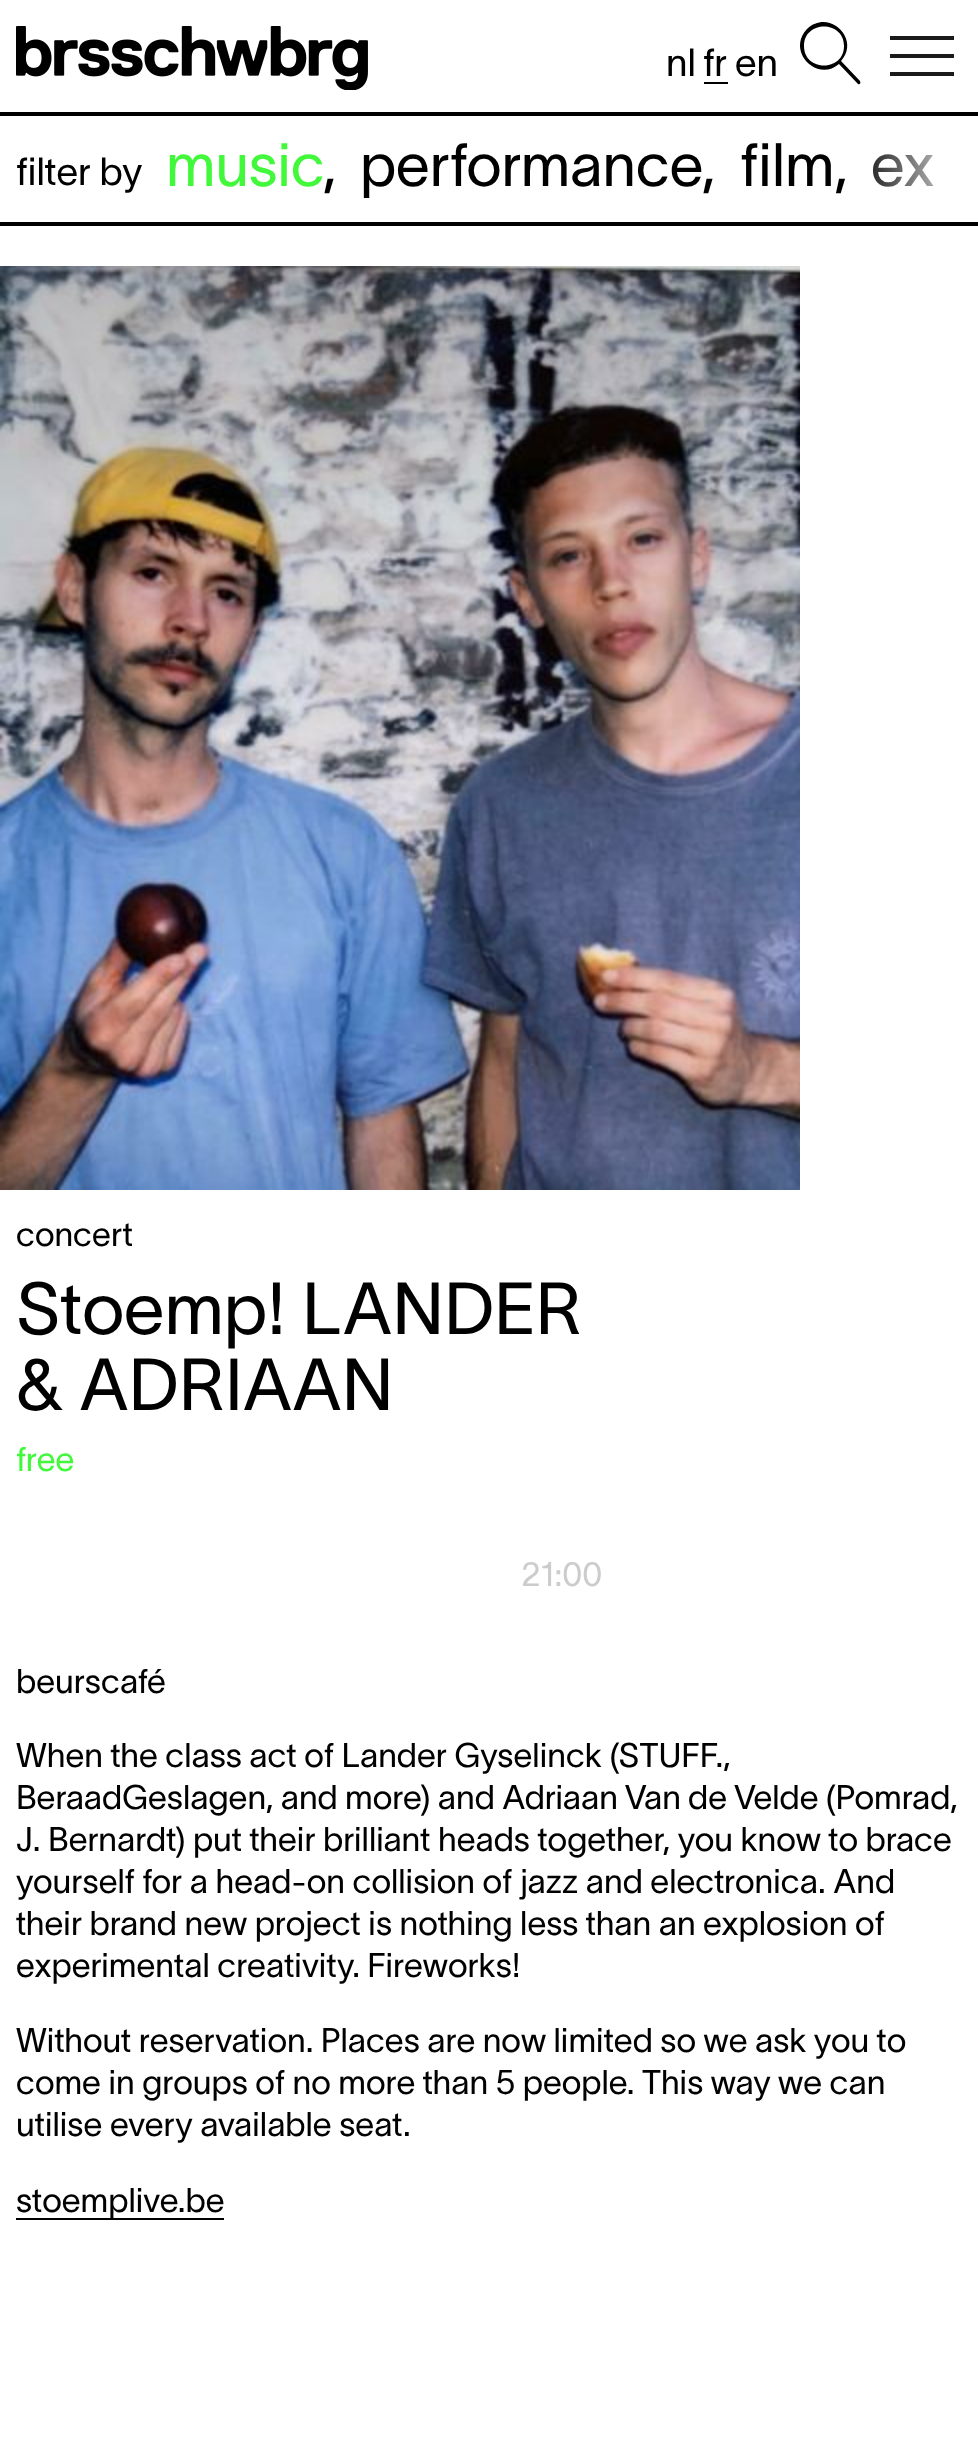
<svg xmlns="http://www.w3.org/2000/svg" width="978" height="2459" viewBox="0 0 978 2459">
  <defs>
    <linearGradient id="g1" gradientUnits="userSpaceOnUse" x1="850" y1="169" x2="978" y2="169"><stop offset="0" stop-color="#ffffff" stop-opacity="0"/><stop offset="1" stop-color="#ffffff"/></linearGradient>
  </defs>
  <rect width="100%" height="100%" fill="#ffffff"/>
  <rect x="0" y="112" width="978" height="4" fill="#000000"/>
  <image x="16" y="26" width="352" height="64" href="img1.png"/>
  <text x="666" y="76" font-family="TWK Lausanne" font-size="38.5" font-weight="300" fill="#000000">nl</text>
  <text x="703" y="76" font-family="TWK Lausanne" font-size="38.5" font-weight="300" fill="#000000">fr</text>
  <rect x="704" y="82" width="24" height="2" fill="#000000"/>
  <text x="735" y="76" font-family="TWK Lausanne" font-size="38.5" font-weight="300" fill="#000000">en</text>
  <path d="M860 81L841 61C861 39 829 8 807 29C786 51 817 83 839 64L858 84C860 85 861 83 860 81ZM804 46C804 20 844 20 844 46C844 72 804 72 804 46Z" fill="#000000"/>
  <rect x="890" y="36" width="64" height="4" fill="#1a1a1a"/>
  <rect x="890" y="54" width="64" height="4" fill="#1a1a1a"/>
  <rect x="890" y="72" width="64" height="4" fill="#1a1a1a"/>
  <rect x="0" y="222" width="978" height="4" fill="#000000"/>
  <text x="16" y="185" font-family="TWK Lausanne" font-size="38.5" font-weight="300" fill="#000000">filter by</text>
  <text x="166" y="186" font-family="TWK Lausanne" font-size="60" font-weight="300" fill="#42f83b">music</text>
  <text x="323" y="186" font-family="TWK Lausanne" font-size="60" font-weight="300" fill="#000000">,</text>
  <text x="360" y="186" font-family="TWK Lausanne" font-size="60" font-weight="300" fill="#000000">performance</text>
  <text x="702" y="186" font-family="TWK Lausanne" font-size="60" font-weight="300" fill="#000000">,</text>
  <text x="740" y="186" font-family="TWK Lausanne" font-size="60" font-weight="300" fill="#000000">film,</text>
  <text x="871" y="186" font-family="TWK Lausanne" font-size="60" font-weight="300" fill="#000000">ex</text>
  <rect x="873" y="154" width="61" height="33" fill="url(#g1)"/>
  <image x="0" y="266" width="800" height="924" href="img2.png"/>
  <text x="16" y="1246" font-family="TWK Lausanne" font-size="33.6" font-weight="300" fill="#000000">concert</text>
  <text x="16" y="1334" font-family="TWK Lausanne" font-size="72" font-weight="300" fill="#000000">Stoemp! LANDER</text>
  <text x="16" y="1410" font-family="TWK Lausanne" font-size="72" font-weight="300" fill="#000000">&amp; ADRIAAN</text>
  <text x="16" y="1471" font-family="TWK Lausanne" font-size="33.6" font-weight="300" fill="#42f83b">free</text>
  <text x="521" y="1586" font-family="TWK Lausanne" font-size="33.6" font-weight="300" fill="#cccccc">21:00</text>
  <text x="16" y="1693" font-family="TWK Lausanne" font-size="33.6" font-weight="300" fill="#000000">beurscafé</text>
  <text x="16" y="1767" font-family="TWK Lausanne" font-size="33.6" font-weight="300" fill="#000000">When the class act of Lander Gyselinck (STUFF.,</text>
  <text x="16" y="1809" word-spacing="-0.25" font-family="TWK Lausanne" font-size="33.6" font-weight="300" fill="#000000">BeraadGeslagen, and more) and Adriaan Van de Velde (Pomrad,</text>
  <text x="16" y="1851" font-family="TWK Lausanne" font-size="33.6" font-weight="300" fill="#000000">J. Bernardt) put their brilliant heads together, you know to brace</text>
  <text x="16" y="1893" font-family="TWK Lausanne" font-size="33.6" font-weight="300" fill="#000000">yourself for a head-on collision of jazz and electronica. And</text>
  <text x="16" y="1935" font-family="TWK Lausanne" font-size="33.6" font-weight="300" fill="#000000">their brand new project is nothing less than an explosion of</text>
  <text x="16" y="1977" font-family="TWK Lausanne" font-size="33.6" font-weight="300" fill="#000000">experimental creativity. Fireworks!</text>
  <text x="16" y="2052" font-family="TWK Lausanne" font-size="33.6" font-weight="300" fill="#000000">Without reservation. Places are now limited so we ask you to</text>
  <text x="16" y="2094" font-family="TWK Lausanne" font-size="33.6" font-weight="300" fill="#000000">come in groups of no more than 5 people. This way we can</text>
  <text x="16" y="2136" font-family="TWK Lausanne" font-size="33.6" font-weight="300" fill="#000000">utilise every available seat.</text>
  <rect x="16" y="2218" width="208" height="2" fill="#000000"/>
  <text x="16" y="2212" font-family="TWK Lausanne" font-size="33.6" font-weight="300" fill="#000000">stoemplive.be</text>
</svg>
